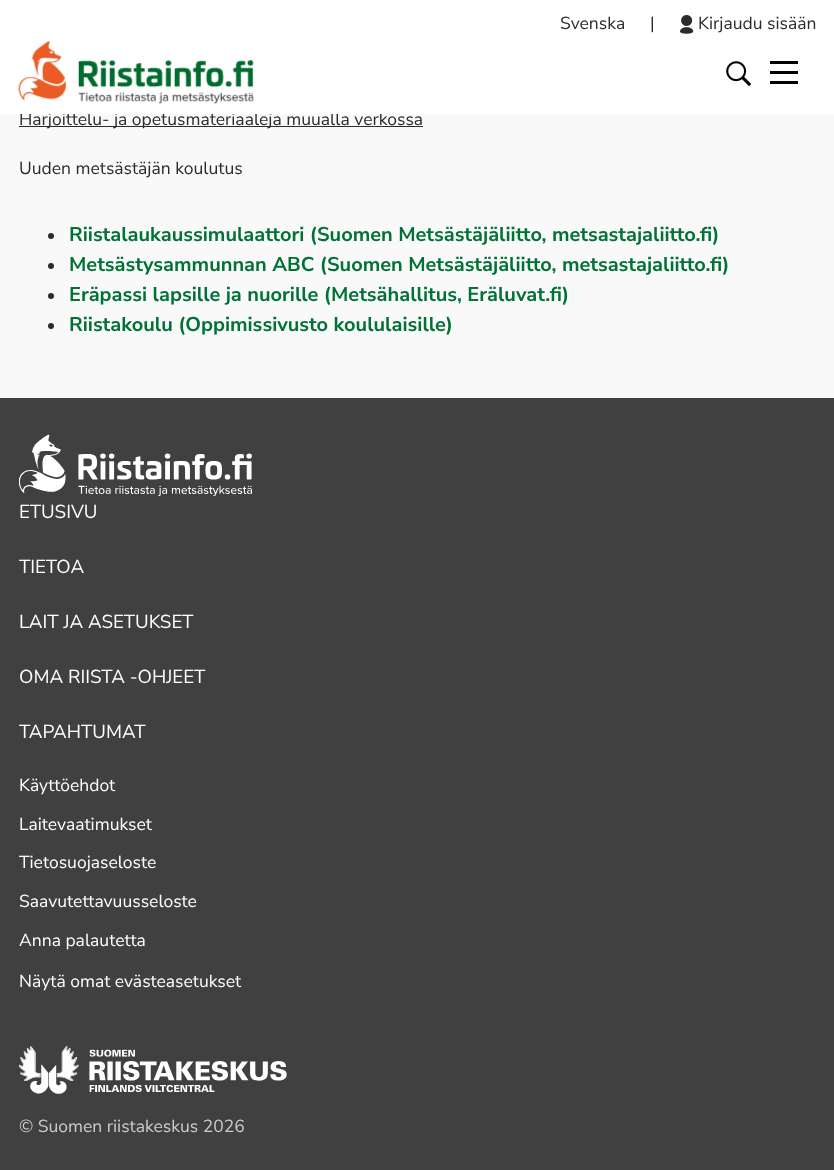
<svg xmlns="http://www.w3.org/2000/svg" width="834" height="1170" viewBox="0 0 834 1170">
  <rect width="100%" height="100%" fill="#f9f9f9"/>
  <rect x="19" y="126" width="404" height="1" fill="#2b2b2b"/>
  <text x="19" y="125" font-family="Nunito Sans" font-size="17.5" fill="#2b2b2b">Harjoittelu- ja opetusmateriaaleja muualla verkossa</text>
  <rect x="0" y="0" width="834" height="114" fill="#ffffff"/>
  <text x="560" y="29" font-family="Nunito Sans" font-size="17.5" fill="#2b2b2b">Svenska</text>
  <text x="650" y="29" font-family="Nunito Sans" font-size="17.5" fill="#2b2b2b">|</text>
  <image x="680" y="15" width="14" height="19" href="img1.png"/>
  <text x="698" y="29" font-family="Nunito Sans" font-size="17.5" fill="#2b2b2b">Kirjaudu sisään</text>
  <image x="18" y="41" width="236" height="63" href="img2.png"/>
  <image x="726" y="61" width="25" height="25" href="img3.png"/>
  <rect x="770" y="61" width="28" height="3" fill="#000000"/>
  <rect x="770" y="71" width="28" height="3" fill="#000000"/>
  <rect x="770" y="81" width="28" height="3" fill="#000000"/>
  <text x="19" y="174" font-family="Nunito Sans" font-size="17.5" fill="#2b2b2b">Uuden metsästäjän koulutus</text>
  <circle cx="51" cy="236" r="3" fill="#2b2b2b"/>
  <text x="69" y="241" font-family="Nunito Sans" font-size="20" font-weight="bold" fill="#007236">Riistalaukaussimulaattori (Suomen Metsästäjäliitto, metsastajaliitto.fi)</text>
  <circle cx="51" cy="266" r="3" fill="#2b2b2b"/>
  <text x="69" y="271" font-family="Nunito Sans" font-size="20" font-weight="bold" fill="#007236">Metsästysammunnan ABC (Suomen Metsästäjäliitto, metsastajaliitto.fi)</text>
  <circle cx="51" cy="296" r="3" fill="#2b2b2b"/>
  <text x="69" y="301" font-family="Nunito Sans" font-size="20" font-weight="bold" fill="#007236">Eräpassi lapsille ja nuorille (Metsähallitus, Eräluvat.fi)</text>
  <circle cx="51" cy="326" r="3" fill="#2b2b2b"/>
  <text x="69" y="331" font-family="Nunito Sans" font-size="20" font-weight="bold" fill="#007236">Riistakoulu (Oppimissivusto koululaisille)</text>
  <rect x="0" y="398" width="834" height="772" fill="#404041"/>
  <image x="19" y="434" width="233" height="63" href="img4.png"/>
  <text x="19" y="518" font-family="Nunito Sans" font-size="18.75" fill="#ffffff">ETUSIVU</text>
  <text x="19" y="573" font-family="Nunito Sans" font-size="18.75" fill="#ffffff">TIETOA</text>
  <text x="19" y="628" font-family="Nunito Sans" font-size="18.75" fill="#ffffff">LAIT JA ASETUKSET</text>
  <text x="19" y="683" font-family="Nunito Sans" font-size="18.75" fill="#ffffff">OMA RIISTA -OHJEET</text>
  <text x="19" y="738" font-family="Nunito Sans" font-size="18.75" fill="#ffffff">TAPAHTUMAT</text>
  <text x="19" y="791" font-family="Nunito Sans" font-size="17.5" fill="#ffffff">Käyttöehdot</text>
  <text x="19" y="830" font-family="Nunito Sans" font-size="17.5" fill="#ffffff">Laitevaatimukset</text>
  <text x="19" y="868" font-family="Nunito Sans" font-size="17.5" fill="#ffffff">Tietosuojaseloste</text>
  <text x="19" y="907" font-family="Nunito Sans" font-size="17.5" fill="#ffffff">Saavutettavuusseloste</text>
  <text x="19" y="946" font-family="Nunito Sans" font-size="17.5" fill="#ffffff">Anna palautetta</text>
  <text x="19" y="987" font-family="Nunito Sans" font-size="17.5" fill="#ffffff">Näytä omat evästeasetukset</text>
  <image x="19" y="1046" width="268" height="48" href="img5.png"/>
  <text x="19" y="1132" font-family="Nunito Sans" font-size="17.5" fill="#cccccc">© Suomen riistakeskus 2026</text>
</svg>
